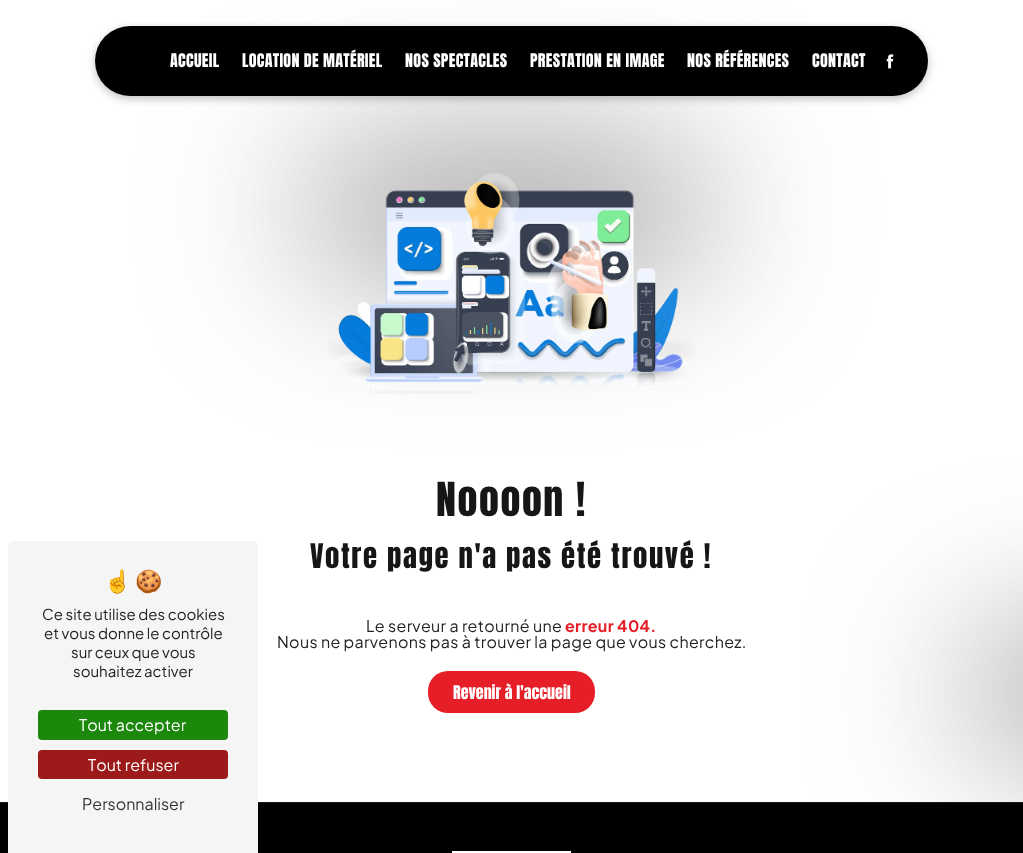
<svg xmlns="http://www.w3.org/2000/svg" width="1023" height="853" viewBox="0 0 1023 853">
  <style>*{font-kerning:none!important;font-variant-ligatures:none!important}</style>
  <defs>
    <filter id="blur1" x="-50%" y="-200%" width="200%" height="500%"><feGaussianBlur stdDeviation="4"/></filter>
    <filter id="blur2" x="-50%" y="-200%" width="200%" height="500%"><feGaussianBlur stdDeviation="80"/></filter>
  </defs>
  <rect width="100%" height="100%" fill="#ffffff"/>
  <rect x="95" y="29" width="833" height="70" rx="35" fill="#000000" fill-opacity="0.24" filter="url(#blur1)"/>
  <rect x="307" y="160" width="400" height="100" rx="50" fill="#808080" filter="url(#blur2)"/>
  <rect x="95" y="26" width="833" height="70" rx="35" fill="#000000"/>
  <text x="170" y="67" font-family="Anton" font-size="16" letter-spacing="0.32" fill="#ffffff">ACCUEIL</text>
  <text x="242" y="67" font-family="Anton" font-size="16" letter-spacing="0.32" fill="#ffffff">LOCATION DE MATÉRIEL</text>
  <text x="405" y="67" font-family="Anton" font-size="16" letter-spacing="0.32" fill="#ffffff">NOS SPECTACLES</text>
  <text x="530" y="67" font-family="Anton" font-size="16" letter-spacing="0.32" fill="#ffffff">PRESTATION EN IMAGE</text>
  <text x="687" y="67" font-family="Anton" font-size="16" letter-spacing="0.32" fill="#ffffff">NOS RÉFÉRENCES</text>
  <text x="812" y="67" font-family="Anton" font-size="16" letter-spacing="0.32" fill="#ffffff">CONTACT</text>
  <image x="886" y="54" width="8" height="15" href="img1.png"/>
  <rect x="972" y="642" width="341" height="100" rx="50" fill="#808080" filter="url(#blur2)"/>
  <rect x="0" y="803" width="1023" height="50" fill="#000000"/>
  <rect x="0" y="802" width="1023" height="1" fill="#1a1a1a"/>
  <path d="M13 541H253C256 541 258 543 258 546V853H8V546C8 543 10 541 13 541Z" fill="#f5f5f5"/>
  <text x="104" y="589" font-family="Noto Color Emoji" font-size="22" fill="#222222">☝</text>
  <text x="135" y="589" font-family="Noto Color Emoji" font-size="22" fill="#222222">🍪</text>
  <text x="42" y="620" font-family="Plus Jakarta Sans" font-size="15" fill="#222222">Ce site utilise des cookies</text>
  <text x="44" y="639" font-family="Plus Jakarta Sans" font-size="15" fill="#222222">et vous donne le contrôle</text>
  <text x="71" y="658" font-family="Plus Jakarta Sans" font-size="15" fill="#222222">sur ceux que vous</text>
  <text x="73" y="677" font-family="Plus Jakarta Sans" font-size="15" fill="#222222">souhaitez activer</text>
  <rect x="38" y="710" width="190" height="30" rx="4" fill="#1b870b"/>
  <text x="79" y="731" font-family="Plus Jakarta Sans" font-size="16" fill="#ffffff">Tout accepter</text>
  <rect x="38" y="750" width="190" height="29" rx="4" fill="#9c1a1a"/>
  <text x="88" y="771" font-family="Plus Jakarta Sans" font-size="16" fill="#ffffff">Tout refuser</text>
  <text x="82" y="810" font-family="Plus Jakarta Sans" font-size="16" fill="#333333">Personnaliser</text>
  <image x="328" y="173" width="367" height="221" href="img2.png"/>
  <text x="436" y="516" font-family="Anton" font-size="40" letter-spacing="1.6" fill="#161616">Noooon !</text>
  <text x="310" y="568" font-family="Anton" font-size="28.75" letter-spacing="1.6" fill="#161616">Votre page n'a pas été trouvé !</text>
  <text x="366" y="632" font-family="Plus Jakarta Sans" font-size="16" letter-spacing="0.32" fill="#222222">Le serveur a retourné une</text>
  <text x="565" y="632" font-family="Plus Jakarta Sans" font-size="16" font-weight="bold" letter-spacing="0.32" fill="#e61e27">erreur 404.</text>
  <text x="277" y="648" font-family="Plus Jakarta Sans" font-size="16" letter-spacing="0.32" fill="#222222">Nous ne parvenons pas à trouver la page que vous cherchez.</text>
  <rect x="428" y="671" width="167" height="42" rx="20" fill="#e61e27"/>
  <text x="453" y="699" font-family="Anton" font-size="16" fill="#ffffff">Revenir à l'accueil</text>
  <rect x="452" y="851" width="119" height="2" fill="#ffffff"/>
</svg>
